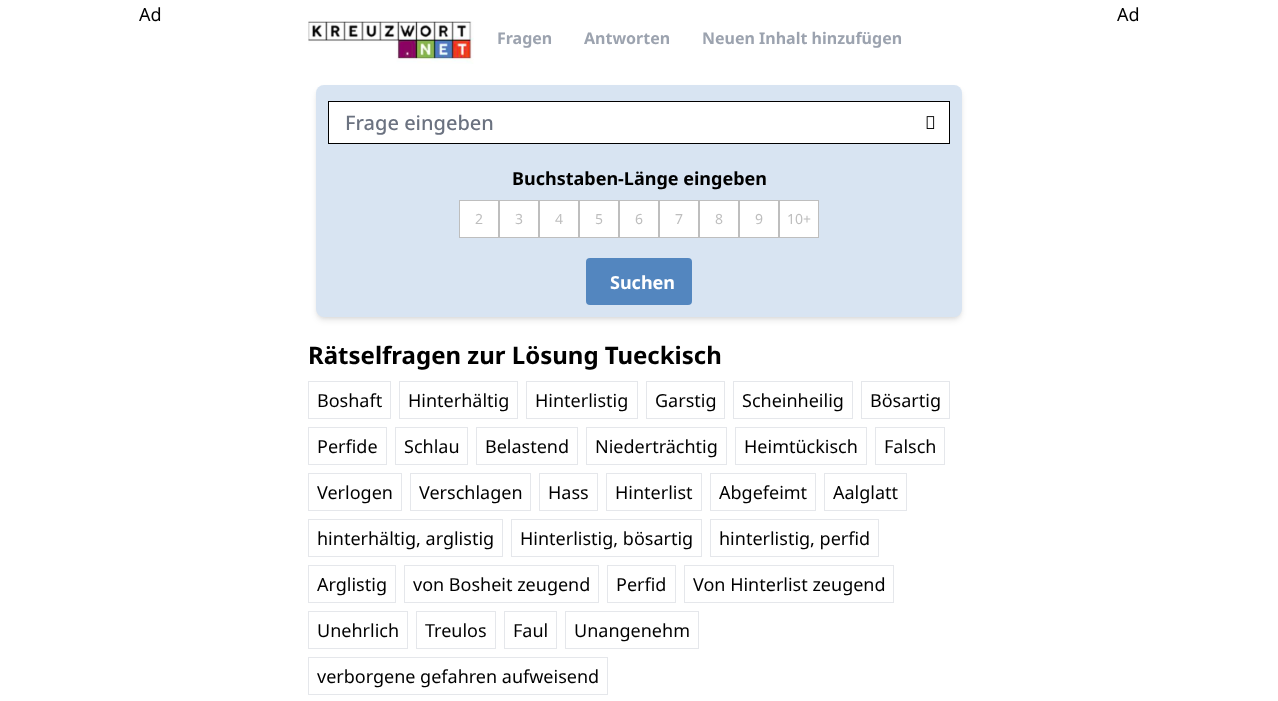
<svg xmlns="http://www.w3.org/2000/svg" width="1278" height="701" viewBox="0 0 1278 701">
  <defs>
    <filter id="blur1" x="-50%" y="-200%" width="200%" height="500%"><feGaussianBlur stdDeviation="2"/></filter>
    <filter id="blur2" x="-50%" y="-200%" width="200%" height="500%"><feGaussianBlur stdDeviation="3"/></filter>
  </defs>
  <rect width="100%" height="100%" fill="#ffffff"/>
  <text x="139" y="21" font-family="Noto Sans" font-size="18" fill="#000000">Ad</text>
  <text x="1117" y="21" font-family="Noto Sans" font-size="18" fill="#000000">Ad</text>
  <rect x="318" y="89" width="642" height="228" rx="6" fill="#000000" fill-opacity="0.1" filter="url(#blur1)"/>
  <rect x="317" y="90" width="644" height="230" rx="7" fill="#000000" fill-opacity="0.1" filter="url(#blur2)"/>
  <rect x="316" y="85" width="646" height="232" rx="8" fill="#d8e4f2"/>
  <rect x="328.5" y="101.5" width="621" height="42" fill="#ffffff" stroke="#000000"/>
  <text x="345" y="130" font-family="Noto Sans" font-size="20" font-weight="500" fill="#6b7280">Frage eingeben</text>
  <image x="926" y="116" width="9" height="13" href="img1.png"/>
  <text x="512" y="185" font-family="Noto Sans" font-size="18" font-weight="bold" fill="#000000">Buchstaben-Länge eingeben</text>
  <rect x="459.5" y="200.5" width="39" height="37" fill="#ffffff" stroke="#bebebe"/>
  <text x="475" y="224" font-family="Noto Sans" font-size="14" fill="#bebebe">2</text>
  <rect x="499.5" y="200.5" width="39" height="37" fill="#ffffff" stroke="#bebebe"/>
  <text x="515" y="224" font-family="Noto Sans" font-size="14" fill="#bebebe">3</text>
  <rect x="539.5" y="200.5" width="39" height="37" fill="#ffffff" stroke="#bebebe"/>
  <text x="555" y="224" font-family="Noto Sans" font-size="14" fill="#bebebe">4</text>
  <rect x="579.5" y="200.5" width="39" height="37" fill="#ffffff" stroke="#bebebe"/>
  <text x="595" y="224" font-family="Noto Sans" font-size="14" fill="#bebebe">5</text>
  <rect x="619.5" y="200.5" width="39" height="37" fill="#ffffff" stroke="#bebebe"/>
  <text x="635" y="224" font-family="Noto Sans" font-size="14" fill="#bebebe">6</text>
  <rect x="659.5" y="200.5" width="39" height="37" fill="#ffffff" stroke="#bebebe"/>
  <text x="675" y="224" font-family="Noto Sans" font-size="14" fill="#bebebe">7</text>
  <rect x="699.5" y="200.5" width="39" height="37" fill="#ffffff" stroke="#bebebe"/>
  <text x="715" y="224" font-family="Noto Sans" font-size="14" fill="#bebebe">8</text>
  <rect x="739.5" y="200.5" width="39" height="37" fill="#ffffff" stroke="#bebebe"/>
  <text x="755" y="224" font-family="Noto Sans" font-size="14" fill="#bebebe">9</text>
  <rect x="779.5" y="200.5" width="39" height="37" fill="#ffffff" stroke="#bebebe"/>
  <text x="787" y="224" font-family="Noto Sans" font-size="14" fill="#bebebe">10+</text>
  <rect x="586" y="258" width="106" height="47" rx="4" fill="#5386bf"/>
  <text x="610" y="289" font-family="Noto Sans" font-size="18" font-weight="bold" fill="#ffffff">Suchen</text>
  <text x="308" y="364" font-family="Noto Sans" font-size="24" font-weight="bold" fill="#000000">Rätselfragen zur Lösung Tueckisch</text>
  <rect x="308.5" y="381.5" width="82" height="37" fill="none" stroke="#e5e7eb"/>
  <text x="317" y="407" font-family="Noto Sans" font-size="18" fill="#000000">Boshaft</text>
  <rect x="399.5" y="381.5" width="118" height="37" fill="none" stroke="#e5e7eb"/>
  <text x="408" y="407" font-family="Noto Sans" font-size="18" fill="#000000">Hinterhältig</text>
  <rect x="526.5" y="381.5" width="111" height="37" fill="none" stroke="#e5e7eb"/>
  <text x="535" y="407" font-family="Noto Sans" font-size="18" fill="#000000">Hinterlistig</text>
  <rect x="646.5" y="381.5" width="78" height="37" fill="none" stroke="#e5e7eb"/>
  <text x="655" y="407" font-family="Noto Sans" font-size="18" fill="#000000">Garstig</text>
  <rect x="733.5" y="381.5" width="119" height="37" fill="none" stroke="#e5e7eb"/>
  <text x="742" y="407" font-family="Noto Sans" font-size="18" fill="#000000">Scheinheilig</text>
  <rect x="861.5" y="381.5" width="88" height="37" fill="none" stroke="#e5e7eb"/>
  <text x="870" y="407" font-family="Noto Sans" font-size="18" fill="#000000">Bösartig</text>
  <rect x="308.5" y="427.5" width="78" height="37" fill="none" stroke="#e5e7eb"/>
  <text x="317" y="453" font-family="Noto Sans" font-size="18" fill="#000000">Perfide</text>
  <rect x="395.5" y="427.5" width="72" height="37" fill="none" stroke="#e5e7eb"/>
  <text x="404" y="453" font-family="Noto Sans" font-size="18" fill="#000000">Schlau</text>
  <rect x="476.5" y="427.5" width="101" height="37" fill="none" stroke="#e5e7eb"/>
  <text x="485" y="453" font-family="Noto Sans" font-size="18" fill="#000000">Belastend</text>
  <rect x="586.5" y="427.5" width="140" height="37" fill="none" stroke="#e5e7eb"/>
  <text x="595" y="453" font-family="Noto Sans" font-size="18" fill="#000000">Niederträchtig</text>
  <rect x="735.5" y="427.5" width="131" height="37" fill="none" stroke="#e5e7eb"/>
  <text x="744" y="453" font-family="Noto Sans" font-size="18" fill="#000000">Heimtückisch</text>
  <rect x="875.5" y="427.5" width="69" height="37" fill="none" stroke="#e5e7eb"/>
  <text x="884" y="453" font-family="Noto Sans" font-size="18" fill="#000000">Falsch</text>
  <rect x="308.5" y="473.5" width="93" height="37" fill="none" stroke="#e5e7eb"/>
  <text x="317" y="499" font-family="Noto Sans" font-size="18" fill="#000000">Verlogen</text>
  <rect x="410.5" y="473.5" width="120" height="37" fill="none" stroke="#e5e7eb"/>
  <text x="419" y="499" font-family="Noto Sans" font-size="18" fill="#000000">Verschlagen</text>
  <rect x="539.5" y="473.5" width="58" height="37" fill="none" stroke="#e5e7eb"/>
  <text x="548" y="499" font-family="Noto Sans" font-size="18" fill="#000000">Hass</text>
  <rect x="606.5" y="473.5" width="95" height="37" fill="none" stroke="#e5e7eb"/>
  <text x="615" y="499" font-family="Noto Sans" font-size="18" fill="#000000">Hinterlist</text>
  <rect x="710.5" y="473.5" width="105" height="37" fill="none" stroke="#e5e7eb"/>
  <text x="719" y="499" font-family="Noto Sans" font-size="18" fill="#000000">Abgefeimt</text>
  <rect x="824.5" y="473.5" width="82" height="37" fill="none" stroke="#e5e7eb"/>
  <text x="833" y="499" font-family="Noto Sans" font-size="18" fill="#000000">Aalglatt</text>
  <rect x="308.5" y="519.5" width="194" height="37" fill="none" stroke="#e5e7eb"/>
  <text x="317" y="545" font-family="Noto Sans" font-size="18" fill="#000000">hinterhältig, arglistig</text>
  <rect x="511.5" y="519.5" width="190" height="37" fill="none" stroke="#e5e7eb"/>
  <text x="520" y="545" font-family="Noto Sans" font-size="18" fill="#000000">Hinterlistig, bösartig</text>
  <rect x="710.5" y="519.5" width="168" height="37" fill="none" stroke="#e5e7eb"/>
  <text x="719" y="545" font-family="Noto Sans" font-size="18" fill="#000000">hinterlistig, perfid</text>
  <rect x="308.5" y="565.5" width="87" height="37" fill="none" stroke="#e5e7eb"/>
  <text x="317" y="591" font-family="Noto Sans" font-size="18" fill="#000000">Arglistig</text>
  <rect x="404.5" y="565.5" width="194" height="37" fill="none" stroke="#e5e7eb"/>
  <text x="413" y="591" font-family="Noto Sans" font-size="18" fill="#000000">von Bosheit zeugend</text>
  <rect x="607.5" y="565.5" width="68" height="37" fill="none" stroke="#e5e7eb"/>
  <text x="616" y="591" font-family="Noto Sans" font-size="18" fill="#000000">Perfid</text>
  <rect x="684.5" y="565.5" width="209" height="37" fill="none" stroke="#e5e7eb"/>
  <text x="693" y="591" font-family="Noto Sans" font-size="18" fill="#000000">Von Hinterlist zeugend</text>
  <rect x="308.5" y="611.5" width="99" height="37" fill="none" stroke="#e5e7eb"/>
  <text x="317" y="637" font-family="Noto Sans" font-size="18" fill="#000000">Unehrlich</text>
  <rect x="416.5" y="611.5" width="79" height="37" fill="none" stroke="#e5e7eb"/>
  <text x="425" y="637" font-family="Noto Sans" font-size="18" fill="#000000">Treulos</text>
  <rect x="504.5" y="611.5" width="52" height="37" fill="none" stroke="#e5e7eb"/>
  <text x="513" y="637" font-family="Noto Sans" font-size="18" fill="#000000">Faul</text>
  <rect x="565.5" y="611.5" width="133" height="37" fill="none" stroke="#e5e7eb"/>
  <text x="574" y="637" font-family="Noto Sans" font-size="18" fill="#000000">Unangenehm</text>
  <rect x="308.5" y="657.5" width="299" height="37" fill="none" stroke="#e5e7eb"/>
  <text x="317" y="683" font-family="Noto Sans" font-size="18" fill="#000000">verborgene gefahren aufweisend</text>
  <image x="308" y="21" width="166" height="43" href="img2.png"/>
  <text x="497" y="44" font-family="Noto Sans" font-size="16" font-weight="bold" fill="#9ca3af">Fragen</text>
  <text x="584" y="44" font-family="Noto Sans" font-size="16" font-weight="bold" fill="#9ca3af">Antworten</text>
  <text x="702" y="44" font-family="Noto Sans" font-size="16" font-weight="bold" fill="#9ca3af">Neuen Inhalt hinzufügen</text>
</svg>
